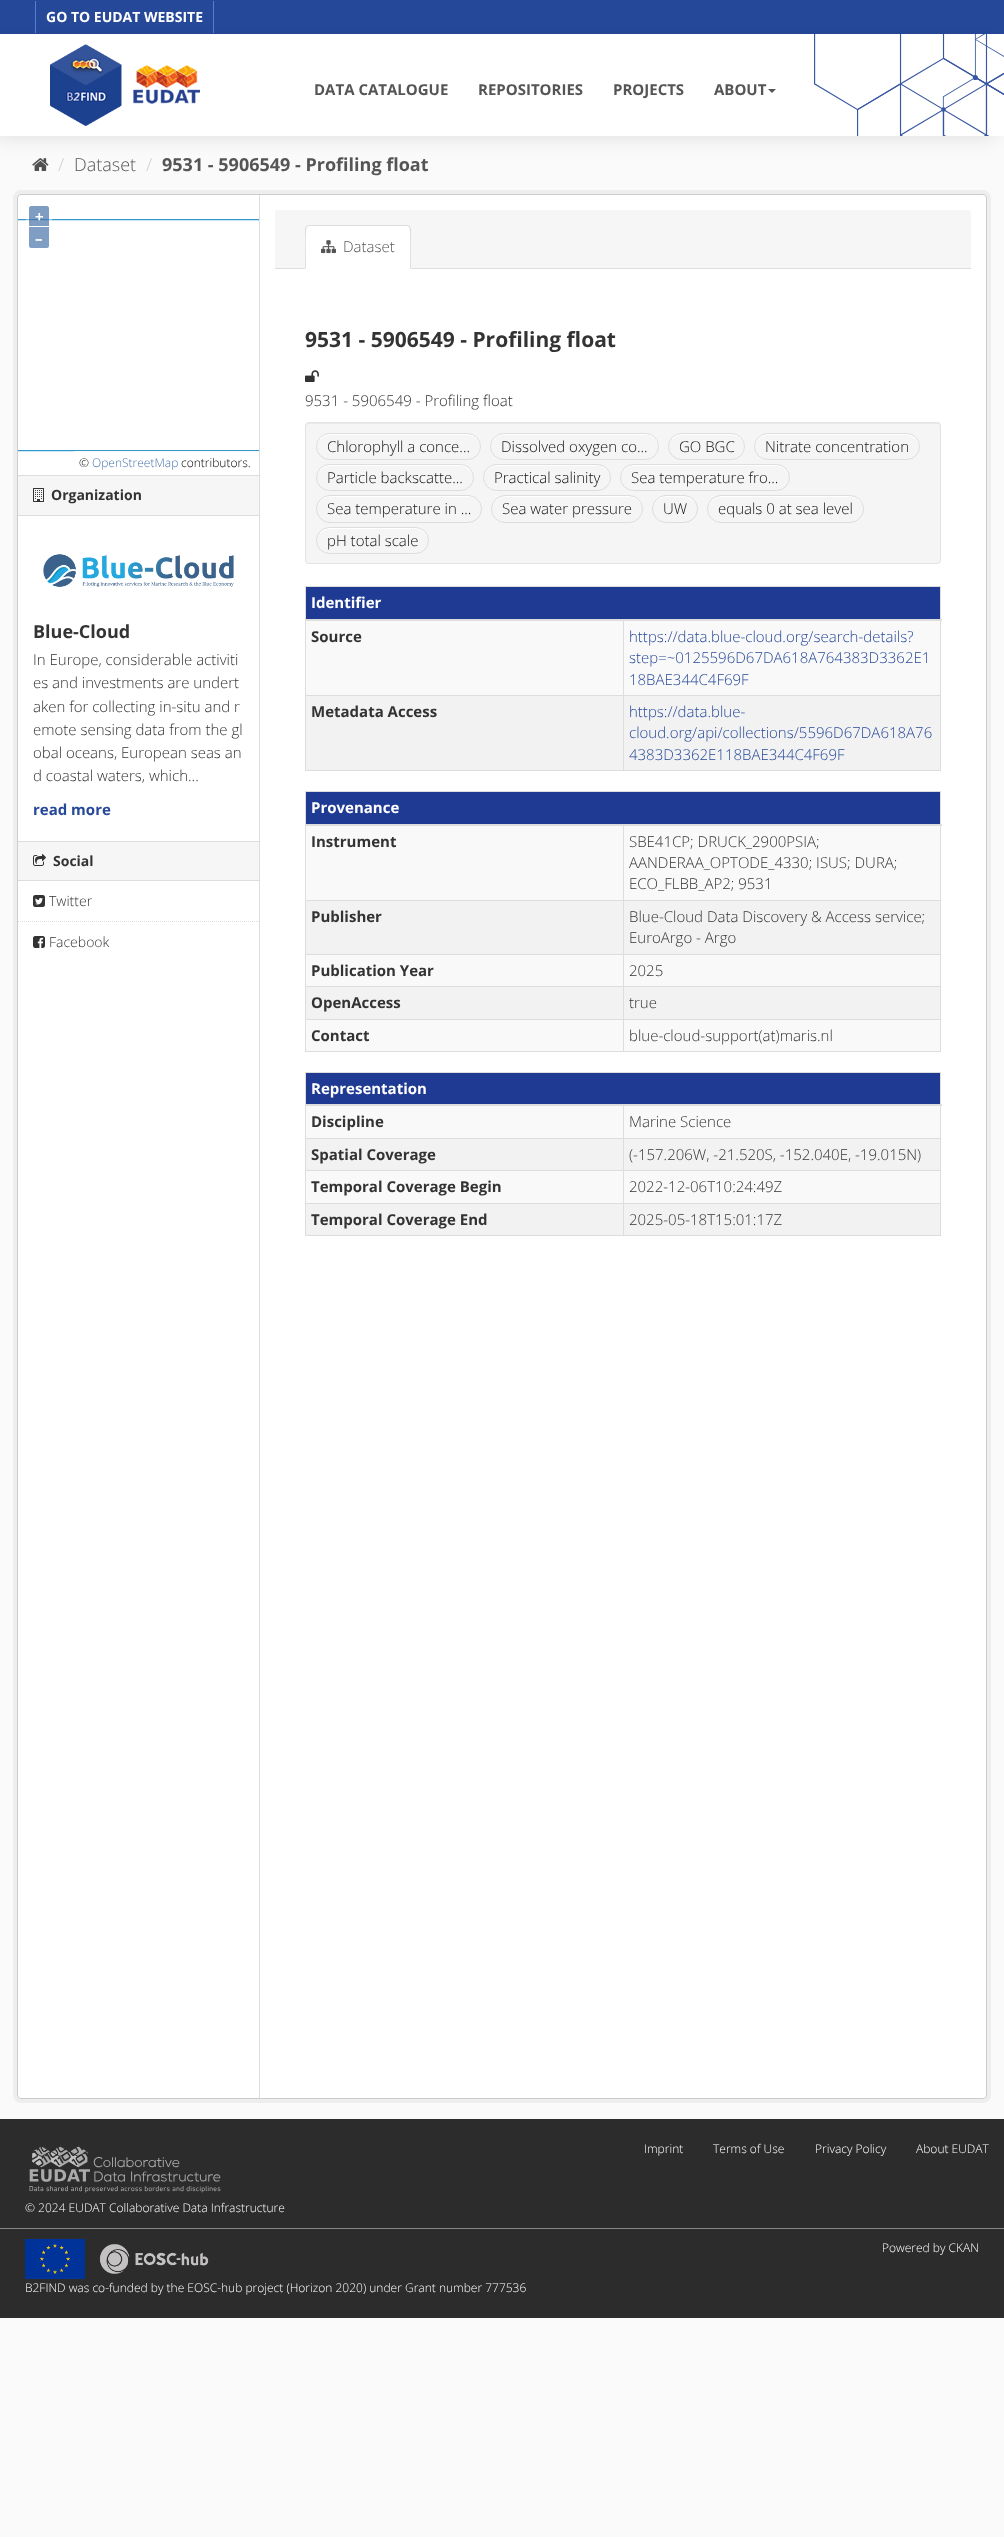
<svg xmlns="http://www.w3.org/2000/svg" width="1004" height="2537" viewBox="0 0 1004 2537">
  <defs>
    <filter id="blur1" x="-50%" y="-200%" width="200%" height="500%"><feGaussianBlur stdDeviation="9"/></filter>
  </defs>
  <rect width="100%" height="100%" fill="#fafafa"/>
  <rect x="0" y="0" width="1004" height="34" fill="#264899"/>
  <rect x="-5" y="40" width="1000" height="98" fill="#000000" fill-opacity="0.1" filter="url(#blur1)"/>
  <rect x="213" y="1" width="1" height="32" fill="#577cd5"/>
  <rect x="35" y="1" width="1" height="32" fill="#577cd5"/>
  <text x="46" y="22" font-family="Open Sans" font-size="14" font-weight="bold" fill="#ffffff">GO TO EUDAT WEBSITE</text>
  <rect x="0" y="34" width="1004" height="102" fill="#ffffff"/>
  <image x="814" y="34" width="190" height="102" href="img1.png"/>
  <image x="50" y="44" width="150" height="82" href="img2.png"/>
  <text x="314" y="95" font-family="Open Sans" font-size="15" font-weight="bold" fill="#555555">DATA CATALOGUE</text>
  <text x="478" y="95" font-family="Open Sans" font-size="15" font-weight="bold" fill="#555555">REPOSITORIES</text>
  <text x="613" y="95" font-family="Open Sans" font-size="15" font-weight="bold" fill="#555555">PROJECTS</text>
  <text x="714" y="95" font-family="Open Sans" font-size="15" font-weight="bold" fill="#555555">ABOUT</text>
  <path d="M768 89H776L772 93Z" fill="#555555"/>
  <image x="32" y="158" width="17" height="13" href="img3.png"/>
  <text x="58" y="171" font-family="Open Sans" font-size="18" font-weight="300" fill="#cccccc">/</text>
  <text x="74" y="171" font-family="Open Sans" font-size="18" font-weight="300" fill="#555555">Dataset</text>
  <text x="146" y="171" font-family="Open Sans" font-size="18" font-weight="300" fill="#cccccc">/</text>
  <text x="162" y="171" font-family="Open Sans" font-size="18" font-weight="bold" fill="#555555">9531 - 5906549 - Profiling float</text>
  <rect x="15" y="192" width="974" height="1909" rx="6" fill="none" stroke="#eeeeee" stroke-width="4"/>
  <rect x="17.5" y="194.5" width="969" height="1904" rx="3.5" fill="#ffffff" stroke="#cccccc"/>
  <image x="18" y="219" width="241" height="233" href="img4.png"/>
  <rect x="26" y="203" width="26" height="48" rx="4" fill="#ffffff" fill-opacity="0.4"/>
  <path d="M31 206H47C48 206 49 207 49 208V226H29V208C29 207 30 206 31 206Z" fill="#003c88" fill-opacity="0.5"/>
  <text x="35" y="222" font-family="Open Sans" font-size="15" font-weight="bold" fill="#ffffff">+</text>
  <path d="M29 227H49V246C49 247 48 248 47 248H31C30 248 29 247 29 246Z" fill="#809ec4"/>
  <text x="35" y="244" font-family="Open Sans" font-size="15" font-weight="bold" fill="#ffffff">–</text>
  <path d="M75 451H259V475H71V455C71 453 73 451 75 451Z" fill="#ffffff" fill-opacity="0.8"/>
  <text x="79" y="467" font-family="Open Sans" font-size="12" font-weight="300" fill="#000000">©</text>
  <text x="92" y="467" font-family="Open Sans" font-size="12" font-weight="300" fill="#4d77ac">OpenStreetMap</text>
  <text x="181" y="467" font-family="Open Sans" font-size="12" font-weight="300" fill="#000000">contributors.</text>
  <rect x="18" y="476" width="241" height="39" fill="#f6f6f6"/>
  <rect x="18" y="475" width="241" height="1" fill="#dddddd"/>
  <rect x="18" y="515" width="241" height="1" fill="#dddddd"/>
  <image x="33" y="488" width="11" height="14" href="img5.png"/>
  <text x="51" y="500" font-family="Open Sans" font-size="14" font-weight="bold" fill="#333333">Organization</text>
  <image x="43" y="554" width="191" height="33" href="img6.png"/>
  <text x="33" y="638" font-family="Open Sans" font-size="18" font-weight="bold" fill="#333333">Blue-Cloud</text>
  <text x="33" y="665" font-family="Open Sans" font-size="15" font-weight="300" fill="#333333">In Europe, considerable activiti</text>
  <text x="33" y="688" font-family="Open Sans" font-size="15" font-weight="300" fill="#333333">es and investments are undert</text>
  <text x="33" y="712" font-family="Open Sans" font-size="15" font-weight="300" fill="#333333">aken for collecting in-situ and r</text>
  <text x="33" y="735" font-family="Open Sans" font-size="15" font-weight="300" fill="#333333">emote sensing data from the gl</text>
  <text x="33" y="758" font-family="Open Sans" font-size="15" font-weight="300" fill="#333333">obal oceans, European seas an</text>
  <text x="33" y="781" font-family="Open Sans" font-size="15" font-weight="300" fill="#333333">d coastal waters, which...</text>
  <text x="33" y="815" font-family="Open Sans" font-size="15" font-weight="bold" fill="#264899">read more</text>
  <rect x="18" y="842" width="241" height="38" fill="#f6f6f6"/>
  <rect x="18" y="841" width="241" height="1" fill="#dddddd"/>
  <rect x="18" y="880" width="241" height="1" fill="#dddddd"/>
  <image x="33" y="854" width="13" height="12" href="img7.png"/>
  <text x="53" y="866" font-family="Open Sans" font-size="14" font-weight="bold" fill="#333333">Social</text>
  <path d="M18 921.5H259" fill="none" stroke="#dddddd" stroke-dasharray="1 1"/>
  <image x="33" y="895" width="12" height="12" href="img8.png"/>
  <text x="49" y="906" font-family="Open Sans" font-size="14" font-weight="300" fill="#333333">Twitter</text>
  <image x="33" y="936" width="12" height="12" href="img9.png"/>
  <text x="49" y="947" font-family="Open Sans" font-size="14" font-weight="300" fill="#333333">Facebook</text>
  <rect x="259" y="195" width="1" height="1903" fill="#dddddd"/>
  <path d="M275 210H968C969.5 210 971 211.5 971 213V269H275Z" fill="#f6f6f6"/>
  <rect x="275" y="268" width="696" height="1" fill="#dddddd"/>
  <path d="M309 225H407C409 225 411 227 411 229V269H305V229C305 227 307 225 309 225Z" fill="#ffffff"/>
  <path d="M309 225L306 226L307 227L309 226H407L409 227L410 226L407 225Z" fill="#dddddd"/>
  <path d="M411 269V229C411 228 410 227 410 226L409 227C411 229 410 263 410 268Z" fill="#dddddd"/>
  <path d="M305 269L306 268C306 263 305 229 307 227L306 226L305 229Z" fill="#dddddd"/>
  <image x="321" y="240" width="15" height="14" href="img10.png"/>
  <text x="343" y="252" font-family="Open Sans" font-size="15" font-weight="300" fill="#555555">Dataset</text>
  <text x="305" y="347" font-family="Open Sans" font-size="21" font-weight="bold" fill="#333333">9531 - 5906549 - Profiling float</text>
  <image x="305" y="370" width="14" height="12" href="img11.png"/>
  <text x="305" y="406" font-family="Open Sans" font-size="15" font-weight="300" fill="#333333">9531 - 5906549 - Profiling float</text>
  <rect x="305" y="422" width="636" height="142" rx="4" fill="#f5f5f5"/>
  <path d="M309 424H937C939 424 940 425 940 427V426C940 424 939 423 937 423H309C307 423 306 424 306 426V427C306 425 307 424 309 424Z" fill="#e9e9e9"/>
  <rect x="305.5" y="422.5" width="635" height="141" rx="3.5" fill="none" stroke="#e3e3e3"/>
  <path d="M330 435H468C474 435 480 441 480 447C481 429 454 434 444 434H352C343 434 316 429 317 447C317 441 323 435 330 435Z" fill="#ffffff"/>
  <rect x="316.5" y="433.5" width="164" height="26" rx="13" fill="none" stroke="#dddddd"/>
  <text x="327" y="452" font-family="Open Sans" font-size="15" font-weight="300" fill="#111111">Chlorophyll a conce...</text>
  <path d="M504 435H646C652 435 658 441 658 447C659 429 631 434 622 434H527C518 434 490 429 491 447C491 441 497 435 504 435Z" fill="#ffffff"/>
  <rect x="490.5" y="433.5" width="168" height="26" rx="13" fill="none" stroke="#dddddd"/>
  <text x="501" y="452" font-family="Open Sans" font-size="15" font-weight="300" fill="#111111">Dissolved oxygen co...</text>
  <path d="M682 435H732C738 435 744 441 744 447C744 441 740 435 734 434H679C673 435 669 441 669 447C669 441 675 435 682 435Z" fill="#ffffff"/>
  <rect x="668.5" y="433.5" width="76" height="26" rx="13" fill="none" stroke="#dddddd"/>
  <text x="679" y="452" font-family="Open Sans" font-size="15" font-weight="300" fill="#111111">GO BGC</text>
  <path d="M768 435H906C913 435 919 441 919 447C920 429 892 434 883 434H791C782 434 754 429 755 447C755 441 761 435 768 435Z" fill="#ffffff"/>
  <rect x="754.5" y="433.5" width="165" height="26" rx="13" fill="none" stroke="#dddddd"/>
  <text x="765" y="452" font-family="Open Sans" font-size="15" font-weight="300" fill="#111111">Nitrate concentration</text>
  <path d="M330 466H460C467 466 473 472 473 478C473 460 448 465 439 465H351C342 465 317 460 317 478C317 472 323 466 330 466Z" fill="#ffffff"/>
  <rect x="316.5" y="464.5" width="157" height="26" rx="13" fill="none" stroke="#dddddd"/>
  <text x="327" y="483" font-family="Open Sans" font-size="15" font-weight="300" fill="#111111">Particle backscatte...</text>
  <path d="M496 466H598C604 466 610 472 610 478C610 462 590 465 581 465H513C504 465 484 462 484 478C484 472 490 466 496 466Z" fill="#ffffff"/>
  <rect x="483.5" y="464.5" width="127" height="26" rx="13" fill="none" stroke="#dddddd"/>
  <text x="494" y="483" font-family="Open Sans" font-size="15" font-weight="300" fill="#111111">Practical salinity</text>
  <path d="M634 466H776C783 466 789 472 789 478C789 460 762 465 753 465H657C648 465 621 460 621 478C621 472 627 466 634 466Z" fill="#ffffff"/>
  <rect x="620.5" y="464.5" width="169" height="26" rx="13" fill="none" stroke="#dddddd"/>
  <text x="631" y="483" font-family="Open Sans" font-size="15" font-weight="300" fill="#111111">Sea temperature fro...</text>
  <path d="M330 497H471C477 498 480 503 481 509C481 502 475 496 468 496H330C323 496 317 502 317 509V511C317 504 322 497 330 497Z" fill="#ffffff"/>
  <rect x="316.5" y="495.5" width="165" height="27" rx="13.5" fill="none" stroke="#dddddd"/>
  <text x="327" y="514" font-family="Open Sans" font-size="15" font-weight="300" fill="#111111">Sea temperature in ...</text>
  <path d="M505 497H629C636 497 642 503 642 510C643 492 618 496 608 496H526C516 496 491 492 492 510C492 503 498 497 505 497Z" fill="#ffffff"/>
  <rect x="491.5" y="495.5" width="151" height="27" rx="13.5" fill="none" stroke="#dddddd"/>
  <text x="502" y="514" font-family="Open Sans" font-size="15" font-weight="300" fill="#111111">Sea water pressure</text>
  <path d="M666 497C677 497 696 494 697 510C697 503 693 498 687 496H663C657 498 653 503 653 510C653 503 659 497 666 497Z" fill="#ffffff"/>
  <rect x="652.5" y="495.5" width="45" height="27" rx="13.5" fill="none" stroke="#dddddd"/>
  <text x="663" y="514" font-family="Open Sans" font-size="15" font-weight="300" fill="#111111">UW</text>
  <path d="M721 497H850C857 497 863 503 863 510C864 491 838 496 828 496H742C733 496 707 491 708 510C708 503 714 497 721 497Z" fill="#ffffff"/>
  <rect x="707.5" y="495.5" width="156" height="27" rx="13.5" fill="none" stroke="#dddddd"/>
  <text x="718" y="514" font-family="Open Sans" font-size="15" font-weight="300" fill="#111111">equals 0 at sea level</text>
  <path d="M330 529H416C422 529 428 535 428 541V540C428 534 422 528 416 528H330C323 528 317 534 317 540V541C317 535 323 529 330 529Z" fill="#ffffff"/>
  <rect x="316.5" y="527.5" width="112" height="26" rx="13" fill="none" stroke="#dddddd"/>
  <text x="327" y="546" font-family="Open Sans" font-size="15" font-weight="300" fill="#111111">pH total scale</text>
  <rect x="305" y="586" width="636" height="1" fill="#dddddd"/>
  <rect x="940" y="586" width="1" height="185" fill="#dddddd"/>
  <rect x="305" y="770" width="636" height="1" fill="#dddddd"/>
  <rect x="305" y="586" width="1" height="185" fill="#dddddd"/>
  <rect x="306" y="587" width="634" height="32" fill="#1f3a93"/>
  <rect x="306" y="621" width="634" height="74" fill="#f9f9f9"/>
  <rect x="623" y="695" width="318" height="1" fill="#dddddd"/>
  <rect x="623" y="695" width="1" height="76" fill="#dddddd"/>
  <rect x="305" y="695" width="319" height="1" fill="#dddddd"/>
  <rect x="623" y="619" width="1" height="77" fill="#dddddd"/>
  <rect x="305" y="619" width="637" height="2" fill="#dddddd"/>
  <text x="311" y="608" font-family="Open Sans" font-size="15" font-weight="bold" fill="#ffffff">Identifier</text>
  <text x="311" y="642" font-family="Open Sans" font-size="15" font-weight="bold" fill="#333333">Source</text>
  <text x="629" y="642" font-family="Open Sans" font-size="15" font-weight="300" fill="#264899">https://data.blue-cloud.org/search-details?</text>
  <text x="629" y="663" font-family="Open Sans" font-size="15" font-weight="300" fill="#264899">step=~0125596D67DA618A764383D3362E1</text>
  <text x="629" y="685" font-family="Open Sans" font-size="15" font-weight="300" fill="#264899">18BAE344C4F69F</text>
  <rect x="306" y="696" width="317" height="74" fill="#f2f2f2"/>
  <text x="311" y="717" font-family="Open Sans" font-size="15" font-weight="bold" fill="#333333">Metadata Access</text>
  <rect x="624" y="696" width="316" height="74" fill="#f2f2f2"/>
  <text x="629" y="717" font-family="Open Sans" font-size="15" font-weight="300" fill="#264899">https://data.blue-</text>
  <text x="629" y="738" font-family="Open Sans" font-size="15" font-weight="300" fill="#264899">cloud.org/api/collections/5596D67DA618A76</text>
  <text x="629" y="760" font-family="Open Sans" font-size="15" font-weight="300" fill="#264899">4383D3362E118BAE344C4F69F</text>
  <rect x="305" y="791" width="636" height="1" fill="#dddddd"/>
  <rect x="940" y="791" width="1" height="261" fill="#dddddd"/>
  <rect x="305" y="1051" width="636" height="1" fill="#dddddd"/>
  <rect x="305" y="791" width="1" height="261" fill="#dddddd"/>
  <rect x="306" y="792" width="634" height="32" fill="#1f3a93"/>
  <rect x="306" y="826" width="634" height="74" fill="#f9f9f9"/>
  <rect x="623" y="900" width="318" height="1" fill="#dddddd"/>
  <rect x="623" y="954" width="318" height="1" fill="#dddddd"/>
  <rect x="306" y="955" width="634" height="31" fill="#f9f9f9"/>
  <rect x="623" y="986" width="318" height="1" fill="#dddddd"/>
  <rect x="623" y="1019" width="318" height="1" fill="#dddddd"/>
  <rect x="306" y="1020" width="634" height="31" fill="#f9f9f9"/>
  <rect x="623" y="1019" width="1" height="33" fill="#dddddd"/>
  <rect x="305" y="1019" width="319" height="1" fill="#dddddd"/>
  <rect x="623" y="986" width="1" height="34" fill="#dddddd"/>
  <rect x="305" y="986" width="319" height="1" fill="#dddddd"/>
  <rect x="623" y="954" width="1" height="33" fill="#dddddd"/>
  <rect x="305" y="954" width="319" height="1" fill="#dddddd"/>
  <rect x="623" y="900" width="1" height="55" fill="#dddddd"/>
  <rect x="305" y="900" width="319" height="1" fill="#dddddd"/>
  <rect x="623" y="824" width="1" height="77" fill="#dddddd"/>
  <rect x="305" y="824" width="637" height="2" fill="#dddddd"/>
  <text x="311" y="813" font-family="Open Sans" font-size="15" font-weight="bold" fill="#ffffff">Provenance</text>
  <text x="311" y="847" font-family="Open Sans" font-size="15" font-weight="bold" fill="#333333">Instrument</text>
  <text x="629" y="847" font-family="Open Sans" font-size="15" font-weight="300" fill="#333333">SBE41CP; DRUCK_2900PSIA;</text>
  <text x="629" y="868" font-family="Open Sans" font-size="15" font-weight="300" fill="#333333">AANDERAA_OPTODE_4330; ISUS; DURA;</text>
  <text x="629" y="889" font-family="Open Sans" font-size="15" font-weight="300" fill="#333333">ECO_FLBB_AP2; 9531</text>
  <rect x="306" y="901" width="317" height="53" fill="#f2f2f2"/>
  <text x="311" y="922" font-family="Open Sans" font-size="15" font-weight="bold" fill="#333333">Publisher</text>
  <rect x="624" y="901" width="316" height="53" fill="#f2f2f2"/>
  <text x="629" y="922" font-family="Open Sans" font-size="15" font-weight="300" fill="#333333">Blue-Cloud Data Discovery &amp; Access service;</text>
  <text x="629" y="943" font-family="Open Sans" font-size="15" font-weight="300" fill="#333333">EuroArgo - Argo</text>
  <text x="311" y="976" font-family="Open Sans" font-size="15" font-weight="bold" fill="#333333">Publication Year</text>
  <text x="629" y="976" font-family="Open Sans" font-size="15" font-weight="300" fill="#333333">2025</text>
  <rect x="306" y="987" width="317" height="32" fill="#f2f2f2"/>
  <text x="311" y="1008" font-family="Open Sans" font-size="15" font-weight="bold" fill="#333333">OpenAccess</text>
  <rect x="624" y="987" width="316" height="32" fill="#f2f2f2"/>
  <text x="629" y="1008" font-family="Open Sans" font-size="15" font-weight="300" fill="#333333">true</text>
  <text x="311" y="1041" font-family="Open Sans" font-size="15" font-weight="bold" fill="#333333">Contact</text>
  <text x="629" y="1041" font-family="Open Sans" font-size="15" font-weight="300" fill="#333333">blue-cloud-support(at)maris.nl</text>
  <rect x="305" y="1072" width="636" height="1" fill="#dddddd"/>
  <rect x="940" y="1072" width="1" height="164" fill="#dddddd"/>
  <rect x="305" y="1235" width="636" height="1" fill="#dddddd"/>
  <rect x="305" y="1072" width="1" height="164" fill="#dddddd"/>
  <rect x="306" y="1073" width="634" height="31" fill="#1f3a93"/>
  <rect x="306" y="1106" width="634" height="32" fill="#f9f9f9"/>
  <rect x="623" y="1138" width="318" height="1" fill="#dddddd"/>
  <rect x="623" y="1170" width="318" height="1" fill="#dddddd"/>
  <rect x="306" y="1171" width="634" height="32" fill="#f9f9f9"/>
  <rect x="623" y="1203" width="318" height="1" fill="#dddddd"/>
  <rect x="623" y="1203" width="1" height="33" fill="#dddddd"/>
  <rect x="305" y="1203" width="319" height="1" fill="#dddddd"/>
  <rect x="623" y="1170" width="1" height="34" fill="#dddddd"/>
  <rect x="305" y="1170" width="319" height="1" fill="#dddddd"/>
  <rect x="623" y="1138" width="1" height="33" fill="#dddddd"/>
  <rect x="305" y="1138" width="319" height="1" fill="#dddddd"/>
  <rect x="623" y="1105" width="1" height="34" fill="#dddddd"/>
  <rect x="305" y="1104" width="637" height="2" fill="#dddddd"/>
  <text x="311" y="1094" font-family="Open Sans" font-size="15" font-weight="bold" fill="#ffffff">Representation</text>
  <text x="311" y="1127" font-family="Open Sans" font-size="15" font-weight="bold" fill="#333333">Discipline</text>
  <text x="629" y="1127" font-family="Open Sans" font-size="15" font-weight="300" fill="#333333">Marine Science</text>
  <rect x="306" y="1139" width="317" height="31" fill="#f2f2f2"/>
  <text x="311" y="1160" font-family="Open Sans" font-size="15" font-weight="bold" fill="#333333">Spatial Coverage</text>
  <rect x="624" y="1139" width="316" height="31" fill="#f2f2f2"/>
  <text x="629" y="1160" font-family="Open Sans" font-size="15" font-weight="300" fill="#333333">(-157.206W, -21.520S, -152.040E, -19.015N)</text>
  <text x="311" y="1192" font-family="Open Sans" font-size="15" font-weight="bold" fill="#333333">Temporal Coverage Begin</text>
  <text x="629" y="1192" font-family="Open Sans" font-size="15" font-weight="300" fill="#333333">2022-12-06T10:24:49Z</text>
  <rect x="306" y="1204" width="317" height="31" fill="#f2f2f2"/>
  <text x="311" y="1225" font-family="Open Sans" font-size="15" font-weight="bold" fill="#333333">Temporal Coverage End</text>
  <rect x="624" y="1204" width="316" height="31" fill="#f2f2f2"/>
  <text x="629" y="1225" font-family="Open Sans" font-size="15" font-weight="300" fill="#333333">2025-05-18T15:01:17Z</text>
  <rect x="0" y="2119" width="1004" height="199" fill="#2c2c2c"/>
  <text x="644" y="2153" font-family="Open Sans" font-size="12" font-weight="300" fill="#ffffff">Imprint</text>
  <text x="713" y="2153" font-family="Open Sans" font-size="12" font-weight="300" fill="#ffffff">Terms of Use</text>
  <text x="815" y="2153" font-family="Open Sans" font-size="12" font-weight="300" fill="#ffffff">Privacy Policy</text>
  <text x="916" y="2153" font-family="Open Sans" font-size="12" font-weight="300" fill="#ffffff">About EUDAT</text>
  <image x="29" y="2146" width="192" height="47" href="img12.png"/>
  <text x="25" y="2212" font-family="Open Sans" font-size="12" font-weight="300" fill="#ffffff">© 2024 EUDAT Collaborative Data Infrastructure</text>
  <rect x="0" y="2228" width="1004" height="1" fill="#888888"/>
  <text x="882" y="2252" font-family="Open Sans" font-size="12" font-weight="300" fill="#ffffff">Powered by CKAN</text>
  <image x="25" y="2239" width="60" height="40" href="img13.png"/>
  <image x="99" y="2244" width="110" height="30" href="img14.png"/>
  <text x="25" y="2292" font-family="Open Sans" font-size="12" font-weight="300" fill="#ffffff">B2FIND was co-funded by the EOSC-hub project (Horizon 2020) under Grant number 777536</text>
</svg>
